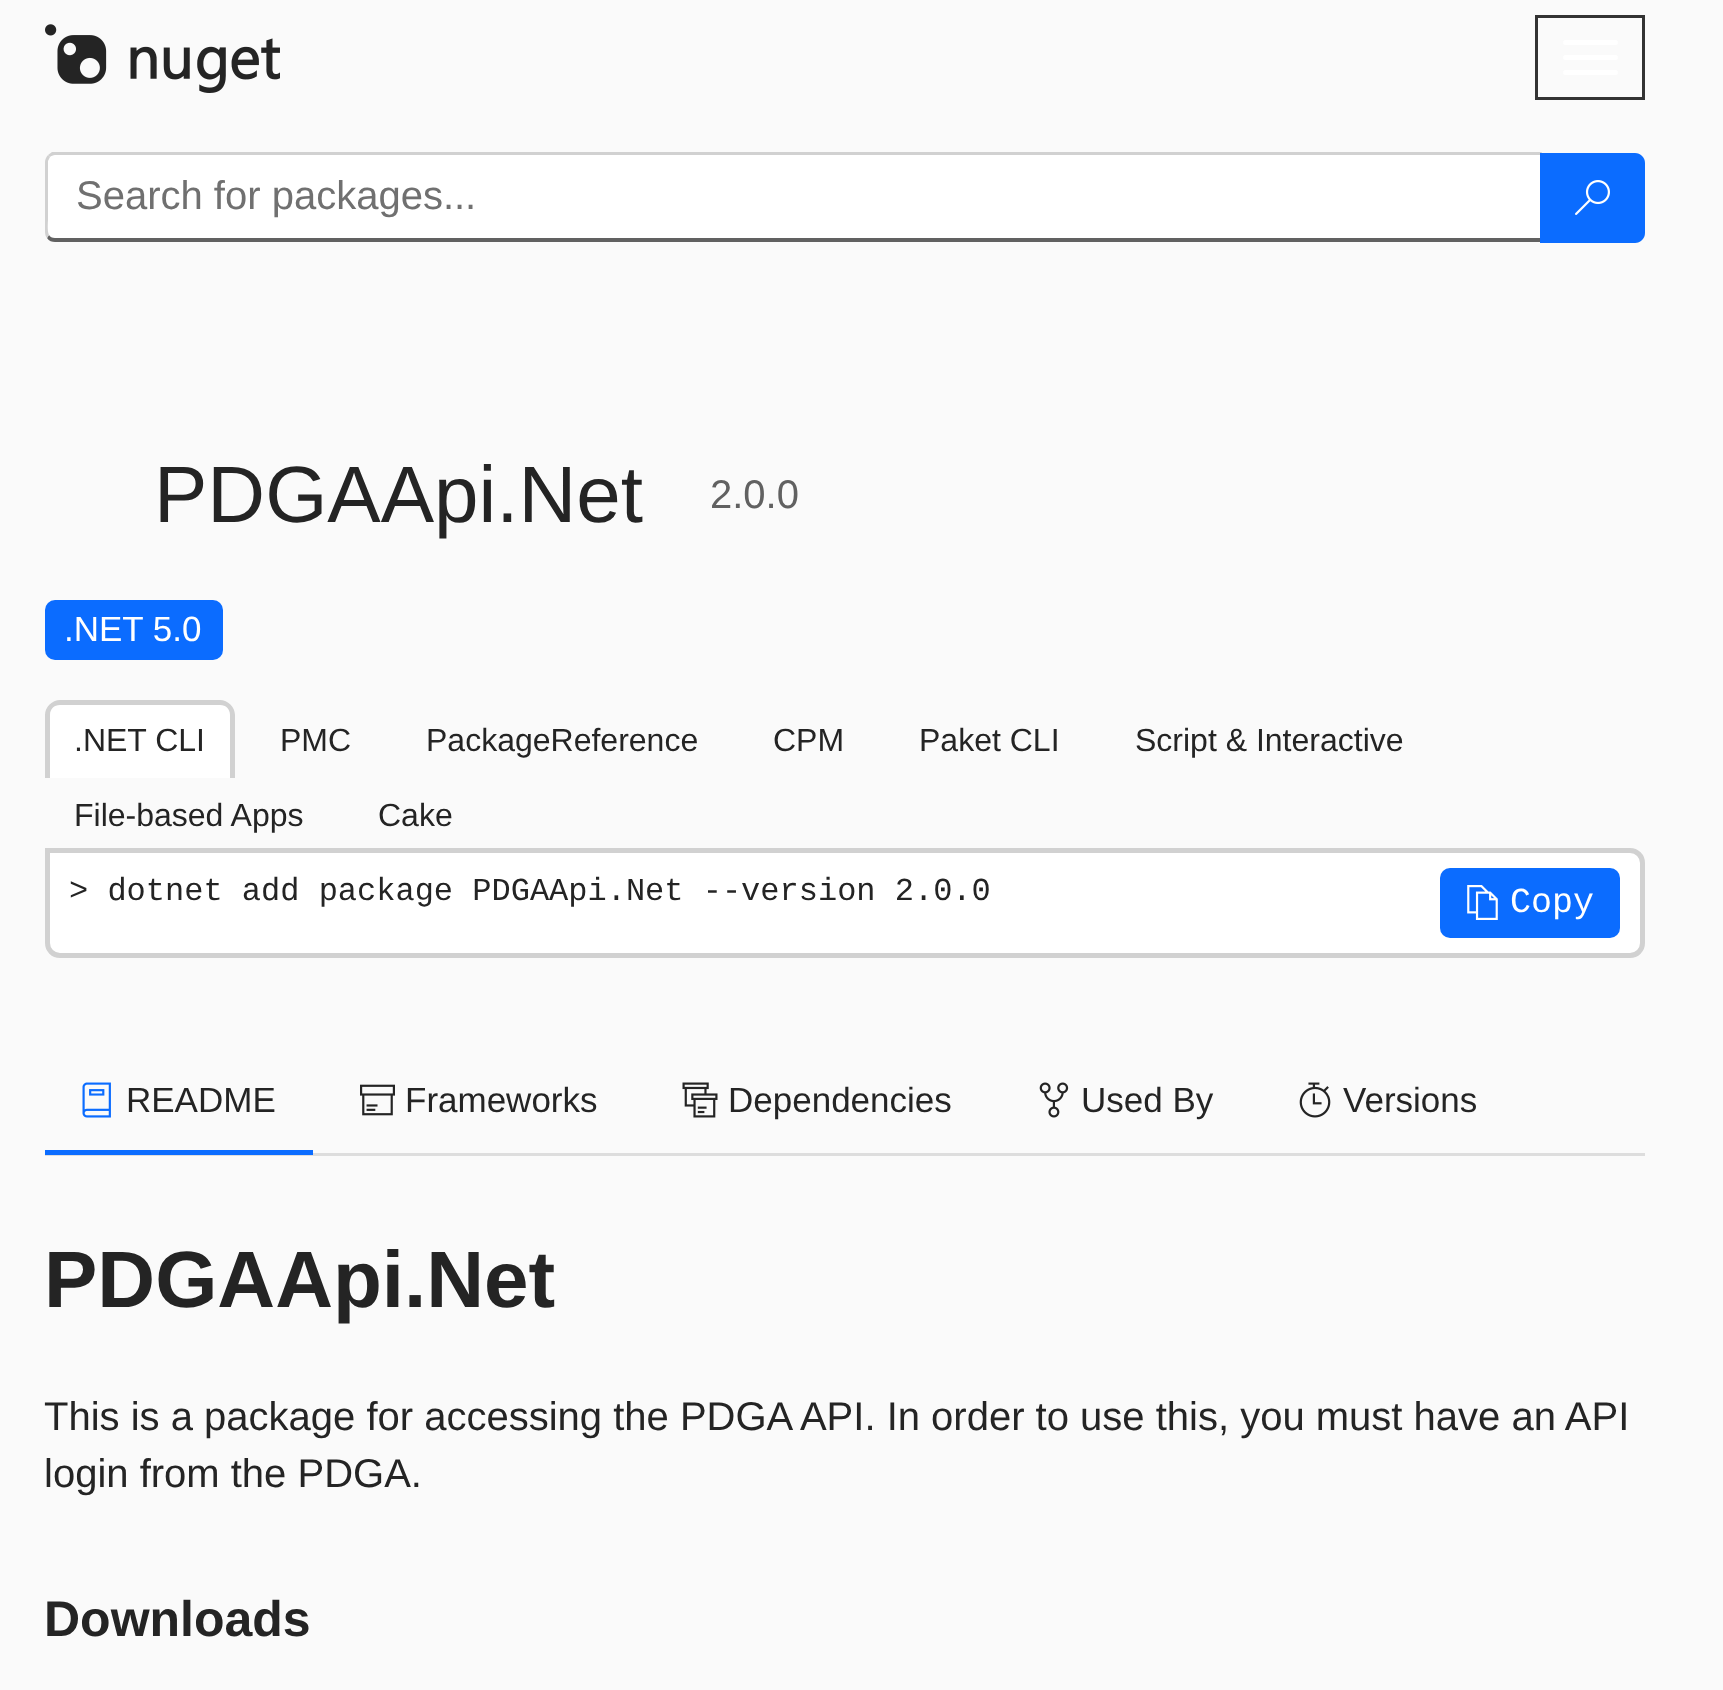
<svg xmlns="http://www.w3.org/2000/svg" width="1723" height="1690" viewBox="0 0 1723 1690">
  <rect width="100%" height="100%" fill="#fafafa"/>
  <image x="45" y="24" width="235" height="69" href="img1.png"/>
  <rect x="1536.5" y="16.5" width="107" height="82" fill="none" stroke="#333333" stroke-width="3"/>
  <rect x="1563" y="40" width="55" height="5" rx="2.5" fill="#ffffff"/>
  <rect x="1563" y="55" width="55" height="5" rx="2.5" fill="#ffffff"/>
  <rect x="1563" y="70" width="55" height="5" rx="2.5" fill="#ffffff"/>
  <path d="M55 155H1540V238H55C51 238 48 235 48 232V162C48 158 51 155 55 155Z" fill="#ffffff"/>
  <path d="M55 155C53 155 51 156 50 157L48 155L52 152H1542L1540 155Z" fill="#d1d1d1"/>
  <path d="M1542 242H55C52 242 49 241 47 238L49 235C50 237 52 238 55 238H1540Z" fill="#616161"/>
  <path d="M45 162V232C45 235 46 237 47 238L49 235C47 231 48 221 48 220V161L50 157L48 155C46 157 45 160 45 162Z" fill="#d1d1d1"/>
  <text x="76" y="209" font-family="Liberation Sans" font-size="40" fill="#707070">Search for packages...</text>
  <path d="M1540 153H1635C1640.5 153 1645 157.5 1645 163V233C1645 238.5 1640.5 243 1635 243H1540Z" fill="#0b6cff"/>
  <image x="1575" y="180" width="35" height="35" href="img2.png"/>
  <text x="154" y="522" font-family="Liberation Sans" font-size="80" fill="#242424">PDGAApi.Net</text>
  <text x="710" y="508" font-family="Liberation Sans" font-size="40" fill="#616161">2.0.0</text>
  <rect x="45" y="600" width="178" height="60" rx="10" fill="#0b6cff"/>
  <text x="64" y="641" font-family="Liberation Sans" font-size="35" fill="#ffffff">.NET 5.0</text>
  <path d="M60 700H220C228.5 700 235 706.5 235 715V778H45V715C45 706.5 51.5 700 60 700Z" fill="#ffffff"/>
  <path d="M60 700H220C228 700 235 707 235 715V778H45V715C45 707 52 700 60 700ZM60 705H220C226 705 230 709 230 715V778H50V715C50 709 54 705 60 705Z" fill="#d1d1d1" fill-rule="evenodd"/>
  <text x="74" y="751" font-family="Liberation Sans" font-size="32" fill="#242424">.NET CLI</text>
  <text x="280" y="751" font-family="Liberation Sans" font-size="32" fill="#242424">PMC</text>
  <text x="426" y="751" font-family="Liberation Sans" font-size="32" fill="#242424">PackageReference</text>
  <text x="773" y="751" font-family="Liberation Sans" font-size="32" fill="#242424">CPM</text>
  <text x="919" y="751" font-family="Liberation Sans" font-size="32" fill="#242424">Paket CLI</text>
  <text x="1135" y="751" font-family="Liberation Sans" font-size="32" fill="#242424">Script &amp; Interactive</text>
  <text x="74" y="826" font-family="Liberation Sans" font-size="32" fill="#242424">File-based Apps</text>
  <text x="378" y="826" font-family="Liberation Sans" font-size="32" fill="#242424">Cake</text>
  <path d="M47.5 850.5H1630C1637 850.5 1642.5 856 1642.5 863V943C1642.5 950 1637 955.5 1630 955.5H60C53 955.5 47.5 950 47.5 943Z" fill="#ffffff" stroke="#d1d1d1" stroke-width="5"/>
  <text x="69" y="900" font-family="Liberation Mono" font-size="32" fill="#242424">&gt; dotnet add package PDGAApi.Net --version 2.0.0</text>
  <rect x="1440" y="868" width="180" height="70" rx="10" fill="#0b6cff"/>
  <image x="1467" y="885" width="31" height="35" href="img3.png"/>
  <text x="1510" y="912" font-family="Liberation Mono" font-size="35" fill="#ffffff">Copy</text>
  <rect x="45" y="1153" width="1600" height="3" fill="#dddddd"/>
  <rect x="45" y="1150" width="268" height="5" fill="#0b6cff"/>
  <image x="82" y="1082" width="29" height="36" href="img4.png"/>
  <text x="126" y="1112" font-family="Liberation Sans" font-size="35" fill="#242424">README</text>
  <image x="360" y="1084" width="35" height="32" href="img5.png"/>
  <text x="405" y="1112" font-family="Liberation Sans" font-size="35" fill="#242424">Frameworks</text>
  <image x="682" y="1082" width="36" height="36" href="img6.png"/>
  <text x="728" y="1112" font-family="Liberation Sans" font-size="35" fill="#242424">Dependencies</text>
  <image x="1039" y="1082" width="30" height="36" href="img7.png"/>
  <text x="1081" y="1112" font-family="Liberation Sans" font-size="35" fill="#242424">Used By</text>
  <image x="1299" y="1082" width="32" height="36" href="img8.png"/>
  <text x="1343" y="1112" font-family="Liberation Sans" font-size="35" fill="#242424">Versions</text>
  <text x="44" y="1307" font-family="Liberation Sans" font-size="80" font-weight="bold" fill="#242424">PDGAApi.Net</text>
  <text x="44" y="1430" font-family="Liberation Sans" font-size="40" fill="#242424">This is a package for accessing the PDGA API. In order to use this, you must have an API</text>
  <text x="44" y="1487" font-family="Liberation Sans" font-size="40" fill="#242424">login from the PDGA.</text>
  <text x="44" y="1636" font-family="Liberation Sans" font-size="50" font-weight="bold" fill="#242424">Downloads</text>
</svg>
